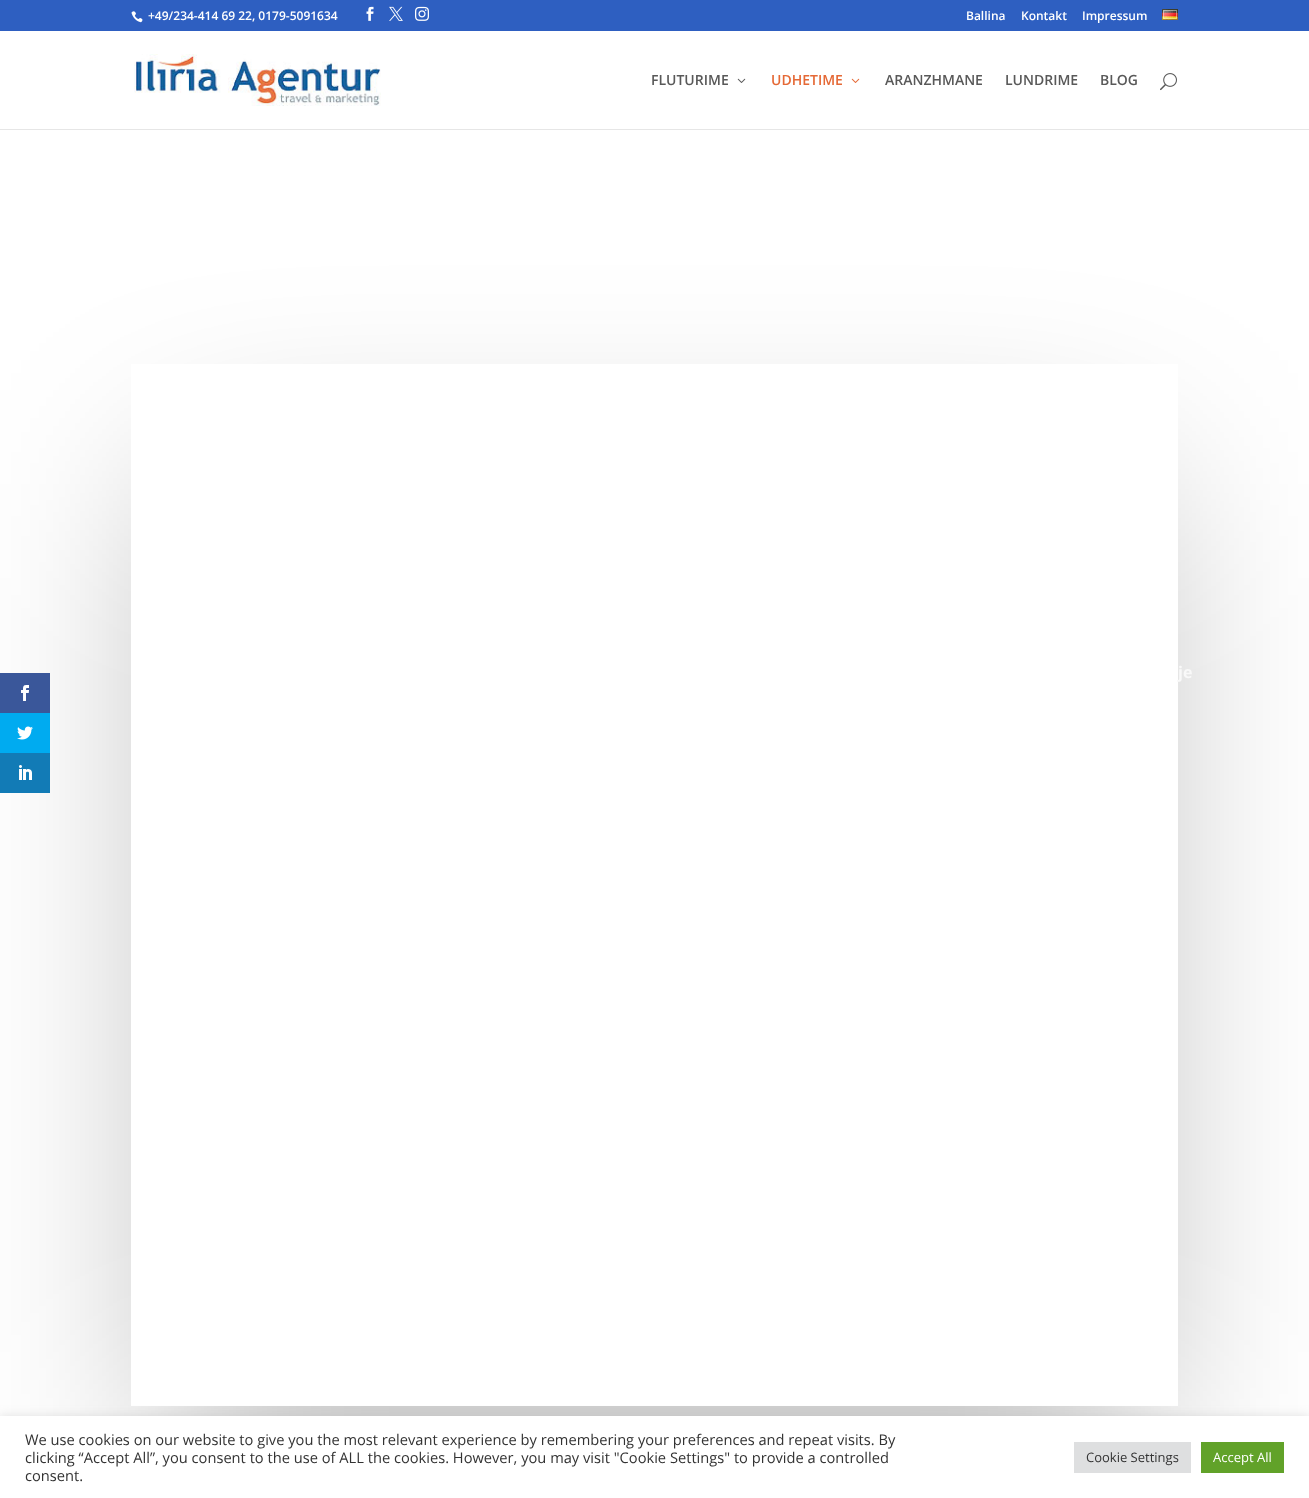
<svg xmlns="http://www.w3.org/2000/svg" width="1309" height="1498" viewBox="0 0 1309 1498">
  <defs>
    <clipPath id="clip1"><path d="M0 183H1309V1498H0ZM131 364H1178V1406H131Z" clip-rule="evenodd"/></clipPath>
    <filter id="blur1" x="-50%" y="-200%" width="200%" height="500%"><feGaussianBlur stdDeviation="100"/></filter>
    <filter id="blur2" x="-50%" y="-200%" width="200%" height="500%"><feGaussianBlur stdDeviation="5"/></filter>
  </defs>
  <rect width="100%" height="100%" fill="#ffffff"/>
  <rect x="0" y="0" width="1309" height="31" fill="#2e5fc1"/>
  <image x="131" y="11" width="12" height="12" href="img1.png"/>
  <text x="148" y="20" font-family="Open Sans" font-size="12" font-weight="600" fill="#ffffff">+49/234-414 69 22, 0179-5091634</text>
  <image x="366" y="6" width="8" height="15" href="img2.png"/>
  <image x="389" y="6" width="14" height="15" href="img3.png"/>
  <image x="415" y="6" width="14" height="15" href="img4.png"/>
  <text x="966" y="20" font-family="Open Sans" font-size="12" font-weight="600" fill="#ffffff">Ballina</text>
  <text x="1021" y="20" font-family="Open Sans" font-size="12" font-weight="600" fill="#ffffff">Kontakt</text>
  <text x="1082" y="20" font-family="Open Sans" font-size="12" font-weight="600" fill="#ffffff">Impressum</text>
  <image x="1162" y="9" width="16" height="11" href="img5.png"/>
  <rect x="0" y="129" width="1309" height="1" fill="#e6e6e6"/>
  <image x="134" y="54" width="247" height="52" href="img6.png"/>
  <text x="651" y="85" font-family="Open Sans" font-size="14" font-weight="600" fill="#595959">FLUTURIME</text>
  <image x="737" y="78" width="9" height="5" href="img7.png"/>
  <text x="771" y="85" font-family="Open Sans" font-size="14" font-weight="600" fill="#e56936">UDHETIME</text>
  <image x="851" y="78" width="9" height="5" href="img8.png"/>
  <text x="885" y="85" font-family="Open Sans" font-size="14" font-weight="600" fill="#595959">ARANZHMANE</text>
  <text x="1005" y="85" font-family="Open Sans" font-size="14" font-weight="600" fill="#595959">LUNDRIME</text>
  <text x="1100" y="85" font-family="Open Sans" font-size="14" font-weight="600" fill="#595959">BLOG</text>
  <image x="1160" y="73" width="17" height="18" href="img9.png"/>
  <g clip-path="url(#clip1)">
    <rect x="171" y="484" width="967" height="962" fill="#000000" fill-opacity="0.3" filter="url(#blur1)"/>
  </g>
  <text x="1178" y="678" font-family="Open Sans" font-size="16" font-weight="bold" fill="#f9f9f9">je</text>
  <rect x="0" y="673" width="50" height="40" fill="#3a579a"/>
  <image x="21" y="685" width="8" height="16" href="img10.png"/>
  <rect x="0" y="713" width="50" height="40" fill="#00abf0"/>
  <image x="17" y="726" width="16" height="14" href="img11.png"/>
  <rect x="0" y="753" width="50" height="40" fill="#127bb6"/>
  <image x="19" y="765" width="13" height="15" href="img12.png"/>
  <rect x="0" y="1415" width="1309" height="82" fill="#acabab" fill-opacity="0.3" filter="url(#blur2)"/>
  <rect x="0" y="1416" width="1309" height="82" fill="#ffffff"/>
  <text x="25" y="1445" font-family="Open Sans" font-size="14.67" fill="#333333">We use cookies on our website to give you the most relevant experience by remembering your preferences and repeat visits. By</text>
  <text x="25" y="1463" font-family="Open Sans" font-size="14.67" fill="#333333">clicking “Accept All”, you consent to the use of ALL the cookies. However, you may visit "Cookie Settings" to provide a controlled</text>
  <text x="25" y="1481" font-family="Open Sans" font-size="14.67" fill="#333333">consent.</text>
  <rect x="1074" y="1442" width="117" height="31" fill="#dedfe0"/>
  <text x="1086" y="1462" font-family="Open Sans" font-size="13" fill="#333333">Cookie Settings</text>
  <rect x="1201" y="1442" width="83" height="31" fill="#61a229"/>
  <text x="1213" y="1462" font-family="Open Sans" font-size="13" fill="#ffffff">Accept All</text>
</svg>
